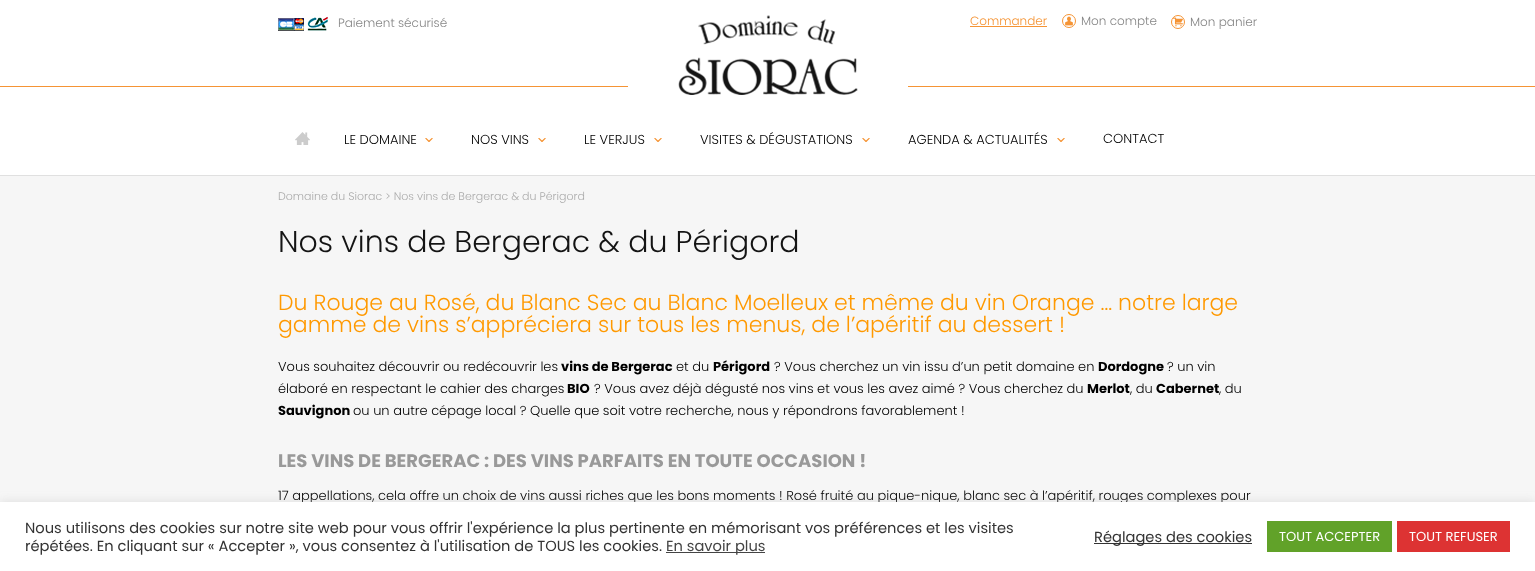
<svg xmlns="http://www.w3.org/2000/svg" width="1535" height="571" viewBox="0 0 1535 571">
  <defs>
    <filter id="blur1" x="-50%" y="-200%" width="200%" height="500%"><feGaussianBlur stdDeviation="5"/></filter>
  </defs>
  <rect width="100%" height="100%" fill="#f6f6f6"/>
  <rect x="0" y="0" width="1535" height="175" fill="#ffffff"/>
  <rect x="0" y="175" width="1535" height="1" fill="#e0e0e0"/>
  <image x="278" y="15" width="50" height="16" href="img1.png"/>
  <text x="338" y="27" font-family="Poppins" font-size="12" font-weight="300" fill="#868686">Paiement sécurisé</text>
  <rect x="0" y="86" width="1535" height="1" fill="#f59435"/>
  <rect x="628" y="86" width="280" height="1" fill="#ffffff"/>
  <image x="678" y="15" width="180" height="80" href="img2.png"/>
  <text x="970" y="25" font-family="Poppins" font-size="12" font-weight="300" fill="#f59435">Commander</text>
  <rect x="970" y="26" width="77" height="1" fill="#f59435"/>
  <circle cx="1069" cy="21" r="6.5" fill="none" stroke="#f59435"/>
  <image x="1065" y="16" width="8" height="10" href="img3.png"/>
  <text x="1081" y="25" font-family="Poppins" font-size="12" font-weight="300" fill="#868686">Mon compte</text>
  <circle cx="1178" cy="22" r="6.5" fill="none" stroke="#f59435"/>
  <image x="1173" y="17" width="10" height="10" href="img4.png"/>
  <text x="1190" y="26" font-family="Poppins" font-size="12" font-weight="300" fill="#868686">Mon panier</text>
  <image x="295" y="132" width="15" height="13" href="img5.png"/>
  <text x="344" y="144" font-family="Poppins" font-size="13" font-weight="300" fill="#000000">LE DOMAINE</text>
  <text x="421" y="148" font-family="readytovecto" font-size="16" fill="#f59435">(</text>
  <text x="471" y="144" font-family="Poppins" font-size="13" font-weight="300" fill="#000000">NOS VINS</text>
  <text x="534" y="148" font-family="readytovecto" font-size="16" fill="#f59435">(</text>
  <text x="584" y="144" font-family="Poppins" font-size="13" font-weight="300" fill="#000000">LE VERJUS</text>
  <text x="650" y="148" font-family="readytovecto" font-size="16" fill="#f59435">(</text>
  <text x="700" y="144" font-family="Poppins" font-size="13" font-weight="300" fill="#000000">VISITES &amp; DÉGUSTATIONS</text>
  <text x="858" y="148" font-family="readytovecto" font-size="16" fill="#f59435">(</text>
  <text x="908" y="144" font-family="Poppins" font-size="13" font-weight="300" fill="#000000">AGENDA &amp; ACTUALITÉS</text>
  <text x="1053" y="148" font-family="readytovecto" font-size="16" fill="#f59435">(</text>
  <text x="1103" y="143" font-family="Poppins" font-size="13" font-weight="300" fill="#000000">CONTACT</text>
  <text x="278" y="200" font-family="Poppins" font-size="11" font-weight="300" fill="#ababab">Domaine du Siorac &gt; Nos vins de Bergerac &amp; du Périgord</text>
  <text x="278" y="252" font-family="Poppins" font-size="30" font-weight="300" fill="#141414">Nos vins de Bergerac &amp; du Périgord</text>
  <text x="278" y="310" font-family="Poppins" font-size="22" font-weight="300" fill="#ff9900">Du Rouge au Rosé, du Blanc Sec au Blanc Moelleux et même du vin Orange … notre large</text>
  <text x="278" y="332" font-family="Poppins" font-size="22" font-weight="300" fill="#ff9900">gamme de vins s’appréciera sur tous les menus, de l’apéritif au dessert !</text>
  <text x="278" y="371" font-family="Poppins" font-size="13" font-weight="300" fill="#000000">Vous souhaitez découvrir ou redécouvrir les</text>
  <text x="561" y="371" font-family="Poppins" font-size="13" font-weight="bold" fill="#000000">vins de Bergerac</text>
  <text x="676" y="371" font-family="Poppins" font-size="13" font-weight="300" fill="#000000">et du</text>
  <text x="713" y="371" font-family="Poppins" font-size="13" font-weight="bold" fill="#000000">Périgord</text>
  <text x="774" y="371" font-family="Poppins" font-size="13" font-weight="300" fill="#000000">? Vous cherchez un vin issu d’un petit domaine en</text>
  <text x="1098" y="371" font-family="Poppins" font-size="13" font-weight="bold" fill="#000000">Dordogne</text>
  <text x="1167" y="371" font-family="Poppins" font-size="13" font-weight="300" fill="#000000">? un vin</text>
  <text x="278" y="393" font-family="Poppins" font-size="13" font-weight="300" fill="#000000">élaboré en respectant le cahier des charges</text>
  <text x="567" y="393" font-family="Poppins" font-size="13" font-weight="bold" fill="#000000">BIO</text>
  <text x="594" y="393" font-family="Poppins" font-size="13" font-weight="300" fill="#000000">? Vous avez déjà dégusté nos vins et vous les avez aimé ? Vous cherchez du</text>
  <text x="1087" y="393" font-family="Poppins" font-size="13" font-weight="bold" fill="#000000">Merlot</text>
  <text x="1130" y="393" font-family="Poppins" font-size="13" font-weight="300" fill="#000000">, du</text>
  <text x="1156" y="393" font-family="Poppins" font-size="13" font-weight="bold" fill="#000000">Cabernet</text>
  <text x="1219" y="393" font-family="Poppins" font-size="13" font-weight="300" fill="#000000">, du</text>
  <text x="278" y="415" font-family="Poppins" font-size="13" font-weight="bold" fill="#000000">Sauvignon</text>
  <text x="353" y="415" font-family="Poppins" font-size="13" font-weight="300" fill="#000000">ou un autre cépage local ? Quelle que soit votre recherche, nous y répondrons favorablement !</text>
  <text x="278" y="467" font-family="Poppins" font-size="18" font-weight="bold" fill="#999999">LES VINS DE BERGERAC : DES VINS PARFAITS EN TOUTE OCCASION !</text>
  <text x="278" y="500" font-family="Poppins" font-size="13" font-weight="300" fill="#000000">17 appellations, cela offre un choix de vins aussi riches que les bons moments ! Rosé fruité au pique-nique, blanc sec à l’apéritif, rouges complexes pour</text>
  <rect x="0" y="501" width="1535" height="69" fill="#acabab" fill-opacity="0.3" filter="url(#blur1)"/>
  <rect x="0" y="502" width="1535" height="69" fill="#ffffff"/>
  <text x="25" y="533" font-family="Poppins" font-size="14.67" fill="#333333">Nous utilisons des cookies sur notre site web pour vous offrir l'expérience la plus pertinente en mémorisant vos préférences et les visites</text>
  <text x="25" y="551" font-family="Poppins" font-size="14.67" fill="#333333">répétées. En cliquant sur « Accepter », vous consentez à l'utilisation de TOUS les cookies.</text>
  <rect x="666" y="552" width="99" height="1" fill="#444444"/>
  <text x="666" y="551" font-family="Poppins" font-size="14.67" fill="#444444">En savoir plus</text>
  <rect x="1094" y="543" width="158" height="1" fill="#333333"/>
  <text x="1094" y="542" font-family="Poppins" font-size="14.67" fill="#333333">Réglages des cookies</text>
  <rect x="1267" y="521" width="125" height="31" fill="#61a229"/>
  <text x="1279" y="541" font-family="Poppins" font-size="13" fill="#ffffff">TOUT ACCEPTER</text>
  <rect x="1397" y="521" width="113" height="31" fill="#dd3333"/>
  <text x="1409" y="541" font-family="Poppins" font-size="13" fill="#ffffff">TOUT REFUSER</text>
</svg>
